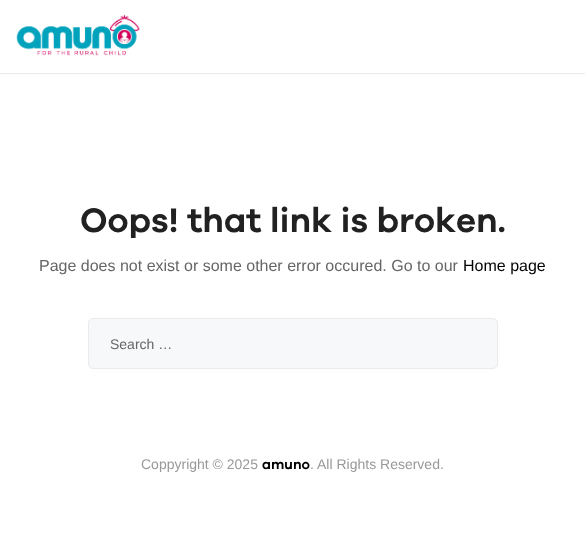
<svg xmlns="http://www.w3.org/2000/svg" width="585" height="535" viewBox="0 0 585 535">
  <rect width="100%" height="100%" fill="#ffffff"/>
  <rect x="0" y="73" width="585" height="1" fill="#ebebeb"/>
  <image x="16" y="14" width="124" height="42" href="img1.png"/>
  <text x="80" y="232" font-family="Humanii" font-size="35" font-weight="500" fill="#212121">Oops! that link is broken.</text>
  <text x="39" y="271" font-family="Liberation Sans" font-size="16" fill="#666666">Page does not exist or some other error occured. Go to our</text>
  <text x="463" y="271" font-family="Liberation Sans" font-size="16" fill="#000000">Home page</text>
  <rect x="88.5" y="318.5" width="409" height="50" rx="4.5" fill="#f7f8fa" stroke="#ebebeb"/>
  <text x="110" y="349" font-family="Liberation Sans" font-size="14" fill="#666666">Search …</text>
  <text x="141" y="469" font-family="Liberation Sans" font-size="14" fill="#999999">Coppyright © 2025</text>
  <text x="262" y="469" font-family="Humanii" font-size="14" font-weight="500" fill="#000000">amuno</text>
  <text x="310" y="469" font-family="Liberation Sans" font-size="14" fill="#999999">. All Rights Reserved.</text>
</svg>
